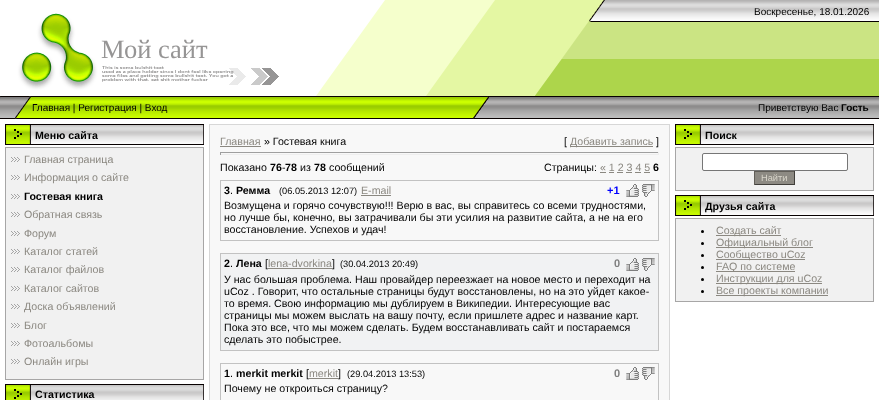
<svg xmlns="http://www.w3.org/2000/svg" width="879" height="400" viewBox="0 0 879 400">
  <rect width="100%" height="100%" fill="#ffffff"/>
  <image x="489" y="0" width="390" height="119" href="img1.png"/>
  <image x="0" y="0" width="101" height="22" href="img2.png"/>
  <image x="101" y="0" width="504" height="22" href="img3.png"/>
  <text x="754" y="15" font-family="Liberation Sans" font-size="10" fill="#000000">Воскресенье, 18.01.2026</text>
  <image x="0" y="22" width="101" height="74" href="img4.png"/>
  <image x="101" y="22" width="487" height="74" href="img5.png"/>
  <text x="101" y="58" font-family="Liberation Serif" font-size="26.5" fill="#969595">Мой сайт</text>
  <image x="0" y="96" width="32" height="23" href="img6.png"/>
  <image x="32" y="96" width="433" height="23" href="img7.png"/>
  <text x="32" y="111" font-family="Liberation Sans" font-size="10" fill="#000000">Главная | Регистрация | Вход</text>
  <image x="465" y="96" width="24" height="23" href="img8.png"/>
  <text x="758" y="111" font-family="Liberation Sans" font-size="10" fill="#000000">Приветствую Вас</text>
  <text x="841" y="111" font-family="Liberation Sans" font-size="10" font-weight="bold" fill="#000000">Гость</text>
  <image x="5" y="124" width="199" height="21" href="img9.png"/>
  <text x="35" y="139" font-family="Liberation Sans" font-size="10.65" font-weight="bold" fill="#000000">Меню сайта</text>
  <rect x="5.5" y="147.5" width="198" height="232" fill="#f1f1f1" stroke="#a7a6a6"/>
  <image x="11" y="157" width="9" height="5" href="img10.png"/>
  <text x="24" y="163" font-family="Liberation Sans" font-size="10.65" fill="#8b8881">Главная страница</text>
  <image x="11" y="175" width="9" height="5" href="img10.png"/>
  <text x="24" y="181" font-family="Liberation Sans" font-size="10.65" fill="#8b8881">Информация о сайте</text>
  <image x="11" y="194" width="9" height="5" href="img10.png"/>
  <text x="24" y="200" font-family="Liberation Sans" font-size="10.65" font-weight="bold" fill="#000000">Гостевая книга</text>
  <image x="11" y="212" width="9" height="5" href="img10.png"/>
  <text x="24" y="218" font-family="Liberation Sans" font-size="10.65" fill="#8b8881">Обратная связь</text>
  <image x="11" y="231" width="9" height="5" href="img10.png"/>
  <text x="24" y="237" font-family="Liberation Sans" font-size="10.65" fill="#8b8881">Форум</text>
  <image x="11" y="249" width="9" height="5" href="img10.png"/>
  <text x="24" y="255" font-family="Liberation Sans" font-size="10.65" fill="#8b8881">Каталог статей</text>
  <image x="11" y="267" width="9" height="5" href="img10.png"/>
  <text x="24" y="273" font-family="Liberation Sans" font-size="10.65" fill="#8b8881">Каталог файлов</text>
  <image x="11" y="286" width="9" height="5" href="img10.png"/>
  <text x="24" y="292" font-family="Liberation Sans" font-size="10.65" fill="#8b8881">Каталог сайтов</text>
  <image x="11" y="304" width="9" height="5" href="img10.png"/>
  <text x="24" y="310" font-family="Liberation Sans" font-size="10.65" fill="#8b8881">Доска объявлений</text>
  <image x="11" y="323" width="9" height="5" href="img10.png"/>
  <text x="24" y="329" font-family="Liberation Sans" font-size="10.65" fill="#8b8881">Блог</text>
  <image x="11" y="341" width="9" height="5" href="img10.png"/>
  <text x="24" y="347" font-family="Liberation Sans" font-size="10.65" fill="#8b8881">Фотоальбомы</text>
  <image x="11" y="359" width="9" height="5" href="img10.png"/>
  <text x="24" y="365" font-family="Liberation Sans" font-size="10.65" fill="#8b8881">Онлайн игры</text>
  <image x="5" y="384" width="199" height="16" href="img11.png"/>
  <text x="35" y="398" font-family="Liberation Sans" font-size="10.65" font-weight="bold" fill="#000000">Статистика</text>
  <rect x="209.5" y="124.5" width="460" height="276" fill="none" stroke="#d7d7d7"/>
  <rect x="210" y="125" width="459" height="275" fill="#f8f8f8"/>
  <text x="220" y="145" font-family="Liberation Sans" font-size="10.65" fill="#8b8881">Главная</text>
  <rect x="220" y="146" width="41" height="1" fill="#8b8881"/>
  <text x="264" y="145" font-family="Liberation Sans" font-size="10.65" fill="#000000">» Гостевая книга</text>
  <text x="564" y="145" font-family="Liberation Sans" font-size="10.65" fill="#000000">[</text>
  <rect x="570" y="146" width="83" height="1" fill="#8b8881"/>
  <text x="570" y="145" font-family="Liberation Sans" font-size="10.65" fill="#8b8881">Добавить запись</text>
  <text x="656" y="145" font-family="Liberation Sans" font-size="10.65" fill="#000000">]</text>
  <rect x="220" y="152" width="439" height="1" fill="#9f9f9f"/>
  <rect x="658" y="152" width="1" height="3" fill="#eeeeee"/>
  <rect x="220" y="154" width="439" height="1" fill="#eeeeee"/>
  <rect x="220" y="152" width="1" height="3" fill="#9f9f9f"/>
  <text x="220" y="171" font-family="Liberation Sans" font-size="10.65" fill="#000000">Показано</text>
  <text x="270" y="171" font-family="Liberation Sans" font-size="10.65" font-weight="bold" fill="#000000">76</text>
  <text x="282" y="171" font-family="Liberation Sans" font-size="10.65" fill="#000000">-</text>
  <text x="285" y="171" font-family="Liberation Sans" font-size="10.65" font-weight="bold" fill="#000000">78</text>
  <text x="300" y="171" font-family="Liberation Sans" font-size="10.65" fill="#000000">из</text>
  <text x="314" y="171" font-family="Liberation Sans" font-size="10.65" font-weight="bold" fill="#000000">78</text>
  <text x="329" y="171" font-family="Liberation Sans" font-size="10.65" fill="#000000">сообщений</text>
  <text x="544" y="171" font-family="Liberation Sans" font-size="10.65" fill="#000000">Страницы:</text>
  <text x="600" y="171" font-family="Liberation Sans" font-size="10.65" fill="#8b8881">« 1 2 3 4 5</text>
  <rect x="600" y="172" width="6" height="1" fill="#8b8881"/>
  <text x="653" y="171" font-family="Liberation Sans" font-size="10.65" font-weight="bold" fill="#000000">6</text>
  <rect x="609" y="172" width="5" height="1" fill="#8b8881"/>
  <rect x="617" y="172" width="6" height="1" fill="#8b8881"/>
  <rect x="626" y="172" width="6" height="1" fill="#8b8881"/>
  <rect x="635" y="172" width="6" height="1" fill="#8b8881"/>
  <rect x="644" y="172" width="6" height="1" fill="#8b8881"/>
  <rect x="220.5" y="180.5" width="438" height="60" fill="none" stroke="#c2c2c2"/>
  <text x="224" y="194" font-family="Liberation Sans" font-size="10.65" font-weight="bold" fill="#000000">3</text>
  <text x="230" y="194" font-family="Liberation Sans" font-size="10.65" fill="#000000">.</text>
  <text x="236" y="194" font-family="Liberation Sans" font-size="10.65" font-weight="bold" fill="#000000">Ремма</text>
  <text x="279" y="194" font-family="Liberation Sans" font-size="9.25" fill="#000000">(06.05.2013 12:07)</text>
  <text x="361" y="194" font-family="Liberation Sans" font-size="10.65" fill="#8b8881">E-mail</text>
  <rect x="361" y="195" width="30" height="1" fill="#8b8881"/>
  <text x="607" y="194" font-family="Liberation Sans" font-size="11" font-weight="bold" fill="#0000ff">+1</text>
  <image x="626" y="184" width="13" height="13" href="img12.png"/>
  <image x="642" y="184" width="13" height="13" href="img13.png"/>
  <text x="224" y="209" font-family="Liberation Sans" font-size="10.65" fill="#000000">Возмущена и горячо сочувствую!!! Верю в вас, вы справитесь со всеми трудностями,</text>
  <text x="224" y="221" font-family="Liberation Sans" font-size="10.65" fill="#000000">но лучше бы, конечно, вы затрачивали бы эти усилия на развитие сайта, а не на его</text>
  <text x="224" y="233" font-family="Liberation Sans" font-size="10.65" fill="#000000">восстановление. Успехов и удач!</text>
  <rect x="220.5" y="253.5" width="438" height="97" fill="#f1f2f3" stroke="#c2c2c2"/>
  <text x="224" y="267" font-family="Liberation Sans" font-size="10.65" font-weight="bold" fill="#000000">2</text>
  <text x="230" y="267" font-family="Liberation Sans" font-size="10.65" fill="#000000">.</text>
  <text x="236" y="267" font-family="Liberation Sans" font-size="10.65" font-weight="bold" fill="#000000">Лена</text>
  <text x="265" y="267" font-family="Liberation Sans" font-size="10.65" fill="#000000">[</text>
  <rect x="268" y="268" width="64" height="1" fill="#8b8881"/>
  <text x="268" y="267" font-family="Liberation Sans" font-size="10.65" fill="#8b8881">lena-dvorkina</text>
  <text x="332" y="267" font-family="Liberation Sans" font-size="10.65" fill="#000000">]</text>
  <text x="340" y="267" font-family="Liberation Sans" font-size="9.25" fill="#000000">(30.04.2013 20:49)</text>
  <text x="614" y="267" font-family="Liberation Sans" font-size="11" font-weight="bold" fill="#808080">0</text>
  <image x="626" y="258" width="13" height="13" href="img14.png"/>
  <image x="642" y="258" width="13" height="13" href="img15.png"/>
  <text x="224" y="283" font-family="Liberation Sans" font-size="10.65" fill="#000000">У нас большая проблема. Наш провайдер переезжает на новое место и переходит на</text>
  <text x="224" y="295" font-family="Liberation Sans" font-size="10.65" fill="#000000">uCoz . Говорит, что остальные страницы будут восстановлены, но на это уйдет какое-</text>
  <text x="224" y="307" font-family="Liberation Sans" font-size="10.65" fill="#000000">то время. Свою информацию мы дублируем в Википедии. Интересующие вас</text>
  <text x="224" y="319" font-family="Liberation Sans" font-size="10.65" fill="#000000">страницы мы можем выслать на вашу почту, если пришлете адрес и название карт.</text>
  <text x="224" y="331" font-family="Liberation Sans" font-size="10.65" fill="#000000">Пока это все, что мы можем сделать. Будем восстанавливать сайт и постараемся</text>
  <text x="224" y="343" font-family="Liberation Sans" font-size="10.65" fill="#000000">сделать это побыстрее.</text>
  <rect x="220.5" y="363.5" width="438" height="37" fill="none" stroke="#c2c2c2"/>
  <text x="224" y="377" font-family="Liberation Sans" font-size="10.65" font-weight="bold" fill="#000000">1</text>
  <text x="230" y="377" font-family="Liberation Sans" font-size="10.65" fill="#000000">.</text>
  <text x="236" y="377" font-family="Liberation Sans" font-size="10.65" font-weight="bold" fill="#000000">merkit merkit</text>
  <text x="306" y="377" font-family="Liberation Sans" font-size="10.65" fill="#000000">[</text>
  <rect x="309" y="378" width="29" height="1" fill="#8b8881"/>
  <text x="309" y="377" font-family="Liberation Sans" font-size="10.65" fill="#8b8881">merkit</text>
  <text x="338" y="377" font-family="Liberation Sans" font-size="10.65" fill="#000000">]</text>
  <text x="347" y="377" font-family="Liberation Sans" font-size="9.25" fill="#000000">(29.04.2013 13:53)</text>
  <text x="614" y="377" font-family="Liberation Sans" font-size="11" font-weight="bold" fill="#808080">0</text>
  <image x="626" y="367" width="13" height="13" href="img12.png"/>
  <image x="642" y="367" width="13" height="13" href="img13.png"/>
  <text x="224" y="392" font-family="Liberation Sans" font-size="10.65" fill="#000000">Почему не откроиться страницу?</text>
  <image x="675" y="124" width="199" height="21" href="img9.png"/>
  <text x="705" y="139" font-family="Liberation Sans" font-size="10.65" font-weight="bold" fill="#000000">Поиск</text>
  <rect x="675.5" y="147.5" width="198" height="43" fill="#f1f1f1" stroke="#a7a6a6"/>
  <rect x="702.5" y="153.5" width="145" height="17" rx="1.5" fill="#ffffff" stroke="#767676"/>
  <rect x="755" y="172" width="39" height="12" fill="#8d8a83"/>
  <rect x="754" y="171" width="41" height="1" fill="#615e58"/>
  <rect x="794" y="171" width="1" height="14" fill="#413f3b"/>
  <rect x="754" y="184" width="41" height="1" fill="#413f3b"/>
  <rect x="754" y="171" width="1" height="14" fill="#615e58"/>
  <text x="761" y="181" font-family="Liberation Sans" font-size="9.25" fill="#dad7cc">Найти</text>
  <image x="675" y="195" width="199" height="21" href="img9.png"/>
  <text x="705" y="210" font-family="Liberation Sans" font-size="10.65" font-weight="bold" fill="#000000">Друзья сайта</text>
  <rect x="675.5" y="218.5" width="198" height="83" fill="#f1f1f1" stroke="#a7a6a6"/>
  <circle cx="702.5" cy="231.5" r="1.5" fill="#000000"/>
  <rect x="716" y="235" width="65" height="1" fill="#8b8881"/>
  <text x="716" y="234" font-family="Liberation Sans" font-size="10.65" fill="#8b8881">Создать сайт</text>
  <circle cx="702.5" cy="243.5" r="1.5" fill="#000000"/>
  <rect x="716" y="247" width="97" height="1" fill="#8b8881"/>
  <text x="716" y="246" font-family="Liberation Sans" font-size="10.65" fill="#8b8881">Официальный блог</text>
  <circle cx="702.5" cy="255.5" r="1.5" fill="#000000"/>
  <rect x="716" y="259" width="89" height="1" fill="#8b8881"/>
  <text x="716" y="258" font-family="Liberation Sans" font-size="10.65" fill="#8b8881">Сообщество uCoz</text>
  <circle cx="702.5" cy="267.5" r="1.5" fill="#000000"/>
  <rect x="716" y="271" width="79" height="1" fill="#8b8881"/>
  <text x="716" y="270" font-family="Liberation Sans" font-size="10.65" fill="#8b8881">FAQ по системе</text>
  <circle cx="702.5" cy="279.5" r="1.5" fill="#000000"/>
  <rect x="716" y="283" width="106" height="1" fill="#8b8881"/>
  <text x="716" y="282" font-family="Liberation Sans" font-size="10.65" fill="#8b8881">Инструкции для uCoz</text>
  <circle cx="702.5" cy="291.5" r="1.5" fill="#000000"/>
  <rect x="716" y="295" width="112" height="1" fill="#8b8881"/>
  <text x="716" y="294" font-family="Liberation Sans" font-size="10.65" fill="#8b8881">Все проекты компании</text>
</svg>
